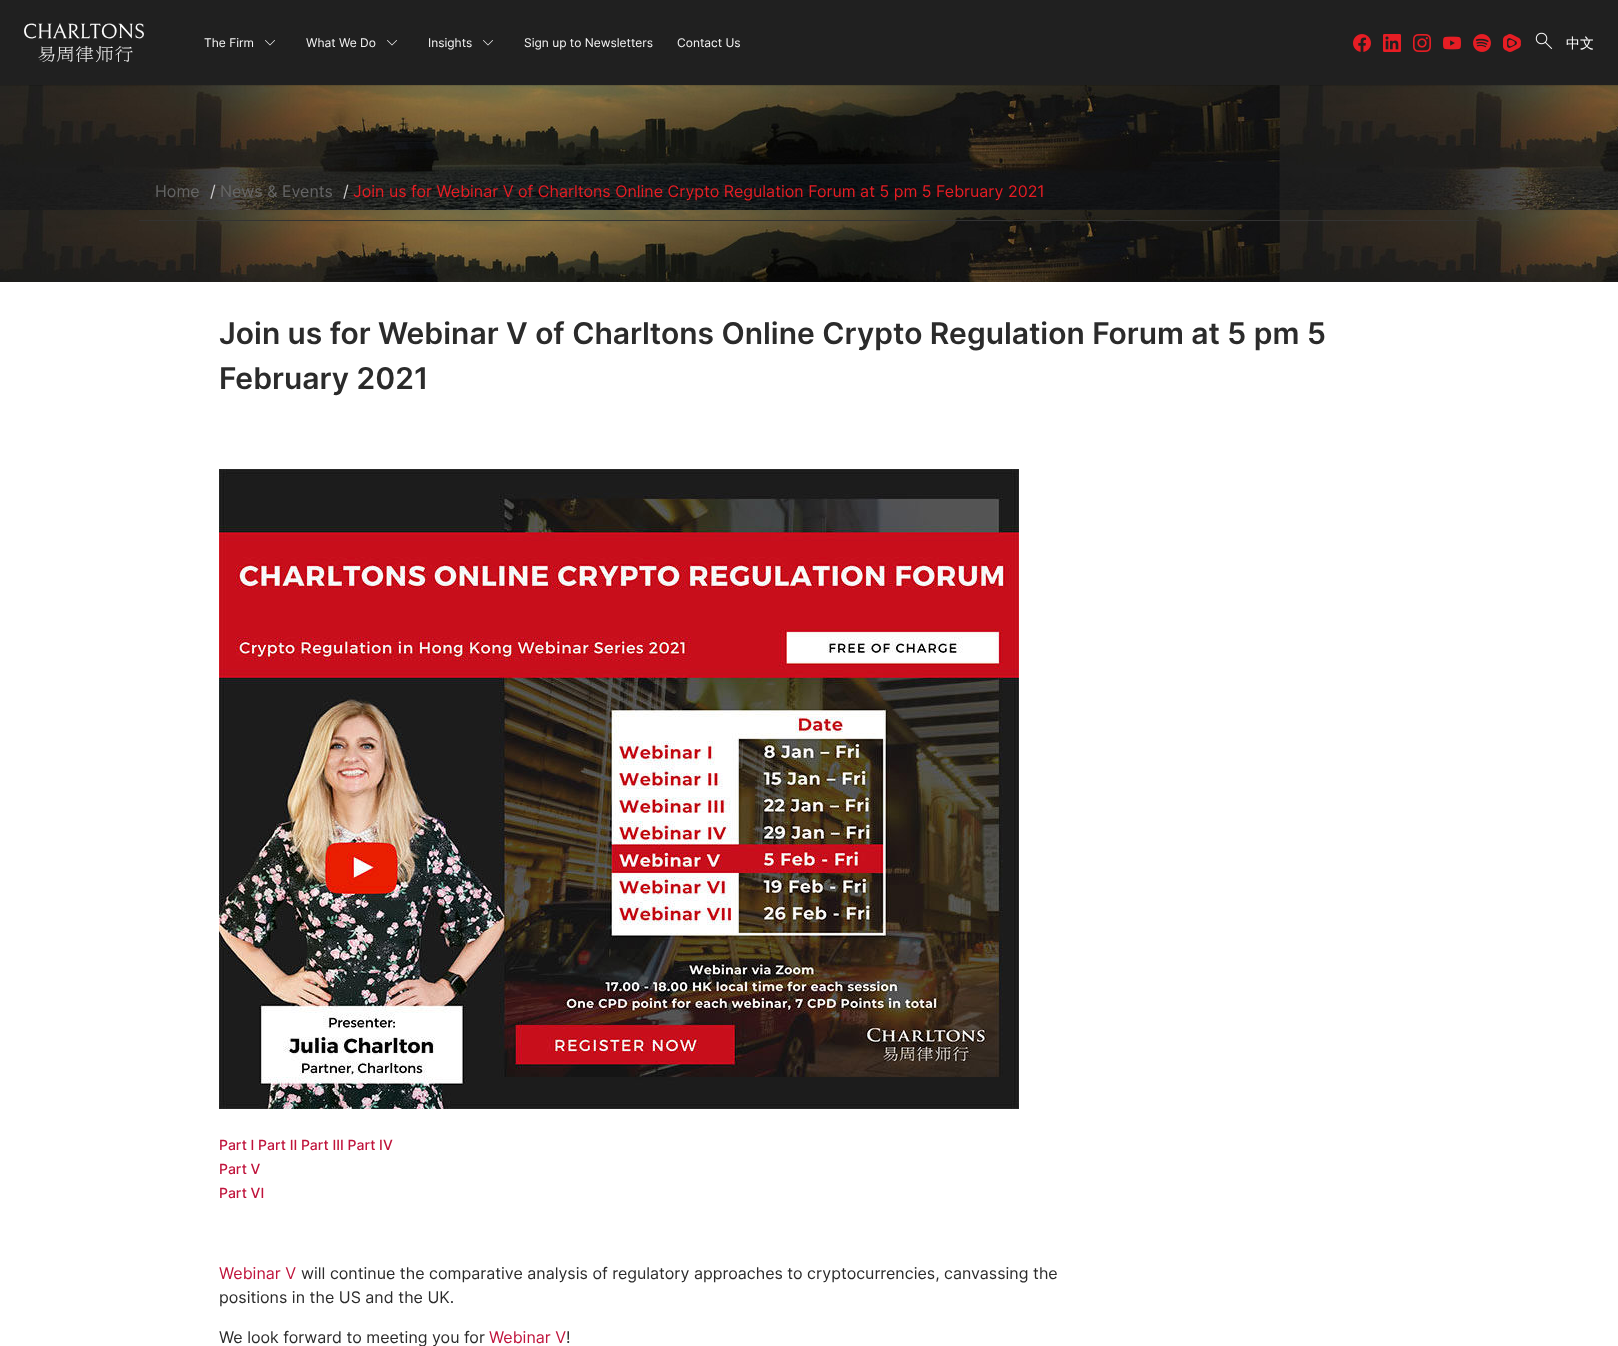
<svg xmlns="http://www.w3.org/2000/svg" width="1618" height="1346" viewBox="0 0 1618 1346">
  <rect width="100%" height="100%" fill="#ffffff"/>
  <image x="0" y="85" width="1618" height="197" href="img10.png"/>
  <rect x="0" y="85" width="1618" height="1" fill="#000000" fill-opacity="0.1"/>
  <rect x="0" y="0" width="1618" height="85" fill="#202020"/>
  <image x="24" y="23" width="120" height="39" href="img1.png"/>
  <text x="204" y="47" font-family="Inter" font-size="12" fill="#f5f5f5">The Firm</text>
  <image x="265" y="40" width="10" height="6" href="img2.png"/>
  <text x="306" y="47" font-family="Inter" font-size="12" fill="#f5f5f5">What We Do</text>
  <image x="387" y="40" width="10" height="6" href="img2.png"/>
  <text x="428" y="47" font-family="Inter" font-size="12" fill="#f5f5f5">Insights</text>
  <image x="483" y="40" width="10" height="6" href="img2.png"/>
  <text x="524" y="47" font-family="Inter" font-size="12" fill="#f5f5f5">Sign up to Newsletters</text>
  <text x="677" y="47" font-family="Inter" font-size="12" fill="#f5f5f5">Contact Us</text>
  <image x="1353" y="34" width="18" height="18" href="img3.png"/>
  <image x="1383" y="34" width="18" height="18" href="img4.png"/>
  <image x="1413" y="34" width="18" height="18" href="img5.png"/>
  <image x="1443" y="36" width="18" height="14" href="img6.png"/>
  <image x="1473" y="34" width="18" height="18" href="img7.png"/>
  <image x="1503" y="34" width="18" height="18" href="img8.png"/>
  <image x="1535" y="32" width="18" height="18" href="img9.png"/>
  <text x="1566" y="48" font-family="WenQuanYi Zen Hei" font-size="14" font-weight="500" fill="#ffffff">中文</text>
  <rect x="139" y="220" width="1340" height="1" fill="#333333"/>
  <text x="155" y="197" font-family="Inter" font-size="16" fill="#656565">Home</text>
  <text x="210" y="197" font-family="Inter" font-size="16" fill="#cccccc">/</text>
  <text x="220" y="197" font-family="Inter" font-size="16" fill="#656565">News &amp; Events</text>
  <text x="343" y="197" font-family="Inter" font-size="16" fill="#cccccc">/</text>
  <text x="353" y="197" font-family="Inter" font-size="16" fill="#e71d24">Join us for Webinar V of Charltons Online Crypto Regulation Forum at 5 pm 5 February 2021</text>
  <text x="219" y="344" font-family="Inter" font-size="30" font-weight="600" fill="#2b2b2b">Join us for Webinar V of Charltons Online Crypto Regulation Forum at 5 pm 5</text>
  <text x="219" y="389" font-family="Inter" font-size="30" font-weight="600" fill="#2b2b2b">February 2021</text>
  <image x="219" y="469" width="800" height="640" href="img11.png"/>
  <text x="219" y="1150" font-family="Inter" font-size="14" font-weight="500" fill="#c0143c">Part I Part II Part III Part IV</text>
  <text x="219" y="1174" font-family="Inter" font-size="14" font-weight="500" fill="#c0143c">Part V</text>
  <text x="219" y="1198" font-family="Inter" font-size="14" font-weight="500" fill="#c0143c">Part VI</text>
  <text x="219" y="1279" font-family="Inter" font-size="16" fill="#c0143c">Webinar V</text>
  <text x="301" y="1279" font-family="Inter" font-size="16" fill="#2b2b2b">will continue the comparative analysis of regulatory approaches to cryptocurrencies, canvassing the</text>
  <text x="219" y="1303" font-family="Inter" font-size="16" fill="#2b2b2b">positions in the US and the UK.</text>
  <text x="219" y="1343" font-family="Inter" font-size="16" fill="#2b2b2b">We look forward to meeting you for</text>
  <text x="489" y="1343" font-family="Inter" font-size="16" fill="#c0143c">Webinar V</text>
  <text x="566" y="1343" font-family="Inter" font-size="16" fill="#2b2b2b">!</text>
</svg>
